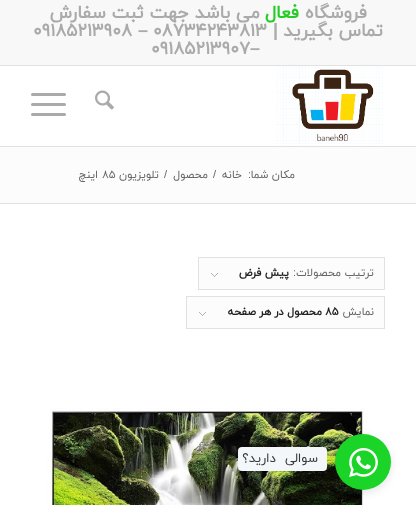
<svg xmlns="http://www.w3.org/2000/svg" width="416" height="505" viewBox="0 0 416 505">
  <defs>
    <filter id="blur1" x="-50%" y="-200%" width="200%" height="500%"><feGaussianBlur stdDeviation="4.5"/></filter>
  </defs>
  <rect width="100%" height="100%" fill="#ffffff"/>
  <rect x="0" y="0" width="416" height="65" fill="#f8f8f8"/>
  <rect x="0" y="65" width="416" height="1" fill="#e1e1e1"/>
  <text x="367" y="18" font-family="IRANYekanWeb" font-size="18" font-weight="bold" direction="rtl" fill="#aaaaaa">فروشگاه</text>
  <text x="299" y="18" font-family="IRANYekanWeb" font-size="18" font-weight="bold" direction="rtl" fill="#23cc26">فعال</text>
  <text x="260" y="18" font-family="IRANYekanWeb" font-size="18" font-weight="bold" direction="rtl" fill="#aaaaaa">می باشد جهت ثبت سفارش</text>
  <text x="383" y="36" font-family="IRANYekanWeb" font-size="18" font-weight="bold" direction="rtl" fill="#aaaaaa">تماس بگیرید</text>
  <text x="278" y="36" font-family="Liberation Sans" font-size="18" font-weight="bold" direction="rtl" fill="#aaaaaa">|</text>
  <text x="153" y="36" font-family="IRANYekanWeb" font-size="18" font-weight="bold" fill="#aaaaaa">۰۸۷۳۴۲۴۳۸۱۳</text>
  <text x="138" y="36" font-family="Liberation Sans" font-size="18" font-weight="bold" fill="#aaaaaa">–</text>
  <text x="33" y="36" font-family="IRANYekanWeb" font-size="18" font-weight="bold" fill="#aaaaaa">۰۹۱۸۵۲۱۳۹۰۸</text>
  <text x="250" y="54" font-family="Liberation Sans" font-size="18" font-weight="bold" fill="#aaaaaa">–</text>
  <text x="151" y="54" font-family="IRANYekanWeb" font-size="18" font-weight="bold" fill="#aaaaaa">۰۹۱۸۵۲۱۳۹۰۷</text>
  <rect x="0" y="146" width="416" height="1" fill="#e1e1e1"/>
  <image x="276" y="66" width="109" height="80" href="img1.png"/>
  <image x="95" y="90" width="19" height="20" href="img2.png"/>
  <rect x="31" y="103" width="35" height="3" rx="1.5" fill="#aaaaaa"/>
  <rect x="31" y="93" width="35" height="3" rx="1.5" fill="#aaaaaa"/>
  <rect x="31" y="113" width="35" height="3" rx="1.5" fill="#aaaaaa"/>
  <rect x="0" y="147" width="416" height="56" fill="#fcfcfc"/>
  <text x="295" y="178" font-family="IRANYekanWeb" font-size="11" direction="rtl" fill="#666666">مکان شما</text>
  <text x="251" y="178" font-family="Liberation Sans" font-size="11" direction="rtl" fill="#666666">:</text>
  <text x="242" y="178" font-family="IRANYekanWeb" font-size="11" direction="rtl" fill="#666666">خانه</text>
  <text x="213" y="178" font-family="Liberation Sans" font-size="11" fill="#666666">/</text>
  <text x="208" y="178" font-family="IRANYekanWeb" font-size="11" direction="rtl" fill="#666666">محصول</text>
  <text x="164" y="178" font-family="Liberation Sans" font-size="11" fill="#666666">/</text>
  <text x="159" y="178" font-family="IRANYekanWeb" font-size="11" direction="rtl" fill="#666666">تلویزیون</text>
  <text x="102" y="178" font-family="IRANYekanWeb" font-size="11" fill="#666666">۸۵</text>
  <text x="98" y="178" font-family="IRANYekanWeb" font-size="11" direction="rtl" fill="#666666">اینچ</text>
  <rect x="0" y="203" width="416" height="1" fill="#e1e1e1"/>
  <rect x="199" y="258" width="185" height="31" fill="#fcfcfc"/>
  <image x="211" y="273" width="7" height="4" href="img3.png"/>
  <rect x="198.5" y="257.5" width="186" height="32" fill="none" stroke="#e1e1e1"/>
  <text x="374" y="276" font-family="IRANYekanWeb" font-size="11" direction="rtl" fill="#666666">ترتیب محصولات</text>
  <text x="296" y="276" font-family="Liberation Sans" font-size="11" direction="rtl" fill="#666666">:</text>
  <text x="289" y="276" font-family="IRANYekanWeb" font-size="11" font-weight="bold" direction="rtl" fill="#222222">پیش فرض</text>
  <rect x="187" y="297" width="197" height="31" fill="#fcfcfc"/>
  <image x="199" y="312" width="7" height="4" href="img3.png"/>
  <rect x="186.5" y="296.5" width="198" height="32" fill="none" stroke="#e1e1e1"/>
  <text x="374" y="315" font-family="IRANYekanWeb" font-size="11" direction="rtl" fill="#666666">نمایش</text>
  <text x="325" y="315" font-family="IRANYekanWeb" font-size="11" font-weight="bold" fill="#222222">۸۵</text>
  <text x="322" y="315" font-family="IRANYekanWeb" font-size="11" font-weight="bold" direction="rtl" fill="#222222">محصول در هر صفحه</text>
  <image x="44" y="408" width="327" height="97" href="img4.png"/>
  <rect x="335" y="437" width="56" height="56" rx="28" fill="#000000" fill-opacity="0.1" filter="url(#blur1)"/>
  <circle cx="363" cy="462" r="28" fill="#1ad527"/>
  <image x="349" y="448" width="29" height="29" href="img5.png"/>
  <rect x="238" y="450" width="89" height="24" rx="4" fill="#000000" fill-opacity="0.06" filter="url(#blur1)"/>
  <rect x="238" y="447" width="89" height="24" rx="4" fill="#f4f7fa"/>
  <text x="318" y="462" word-spacing="5" font-family="IRANYekanWeb" font-size="13" letter-spacing="-0.4" direction="rtl" fill="#3a3a3a">سوالی دارید؟</text>
</svg>
